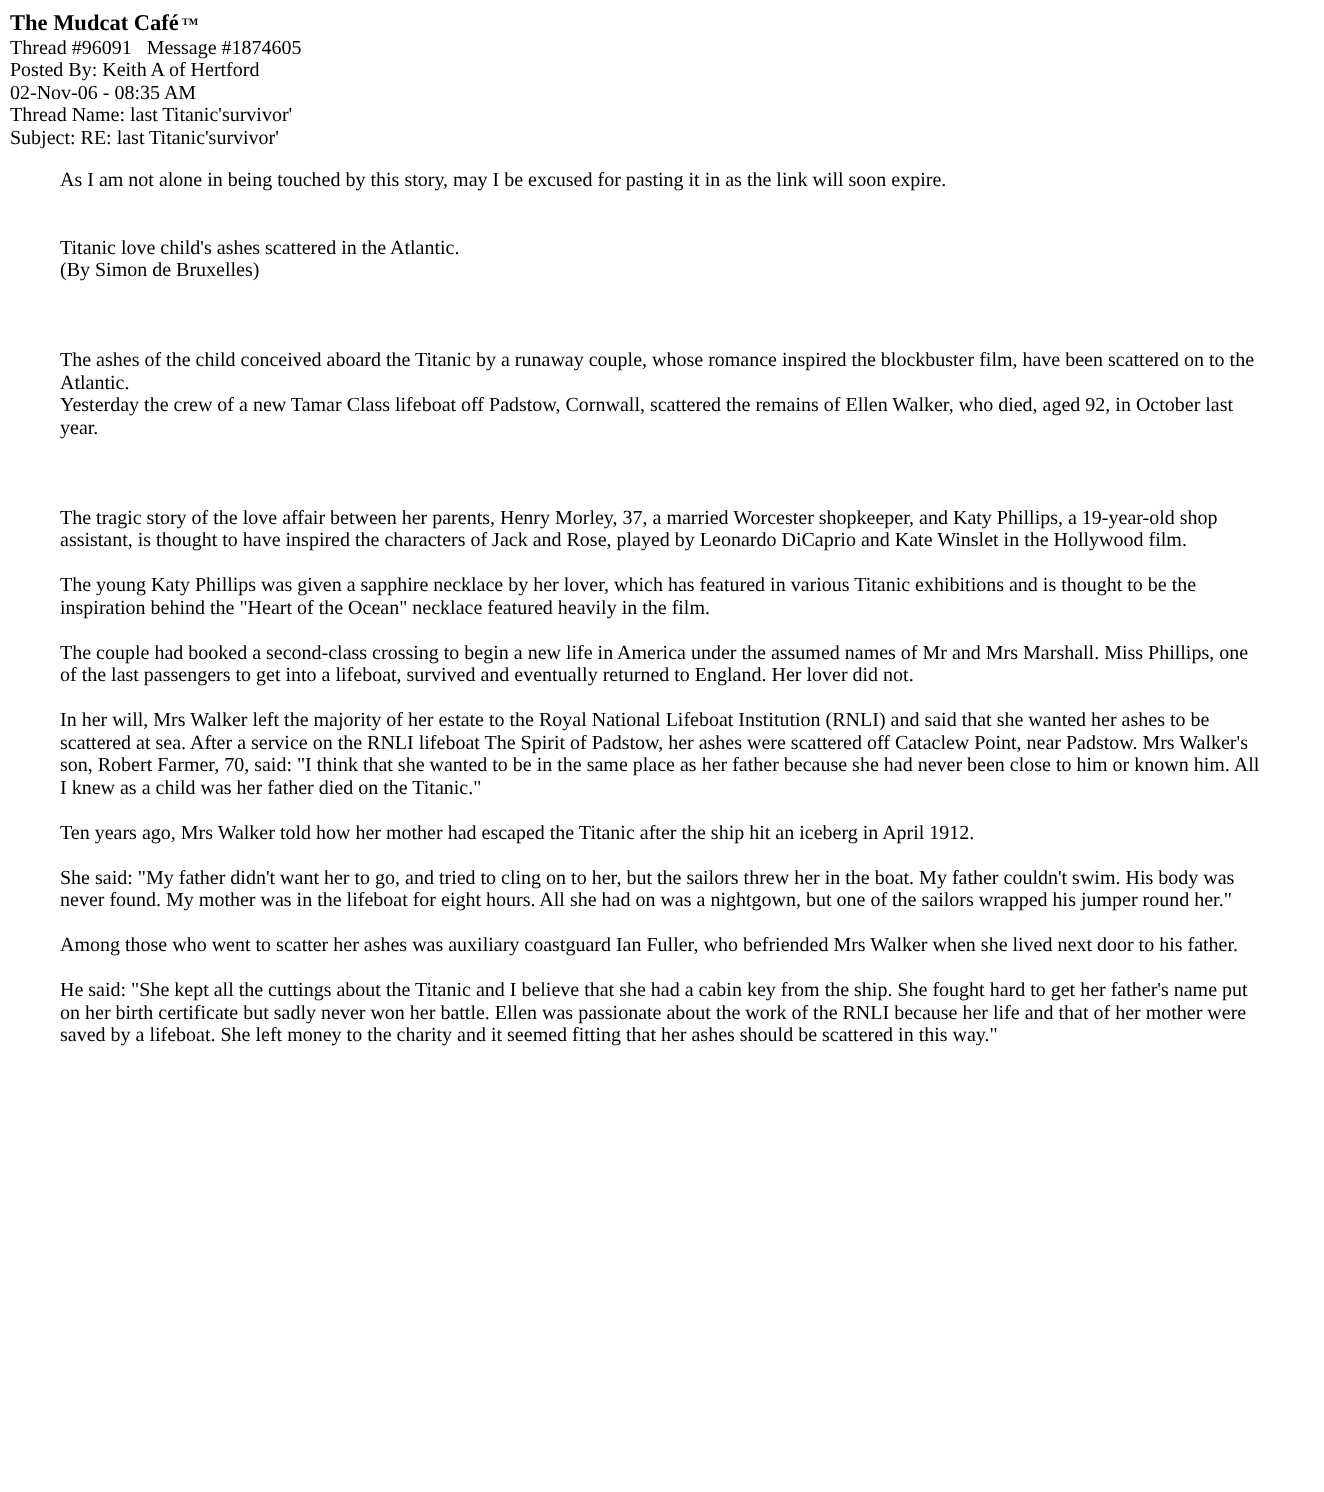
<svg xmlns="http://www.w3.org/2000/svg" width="1324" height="1492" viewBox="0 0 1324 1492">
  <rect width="100%" height="100%" fill="#ffffff"/>
  <text x="10" y="30" font-family="Liberation Serif" font-size="22.5" font-weight="bold" fill="#000000">The Mudcat Café</text>
  <text x="182" y="25" font-family="Liberation Serif" font-size="10" font-weight="bold" fill="#000000">TM</text>
  <text x="10" y="54" font-family="Liberation Serif" font-size="20" fill="#000000" xml:space="preserve">Thread #96091   Message #1874605</text>
  <text x="10" y="76" font-family="Liberation Serif" font-size="20" fill="#000000">Posted By: Keith A of Hertford</text>
  <text x="10" y="99" font-family="Liberation Serif" font-size="20" fill="#000000">02-Nov-06 - 08:35 AM</text>
  <text x="10" y="121" font-family="Liberation Serif" font-size="20" fill="#000000">Thread Name: last Titanic'survivor'</text>
  <text x="10" y="144" font-family="Liberation Serif" font-size="20" fill="#000000">Subject: RE: last Titanic'survivor'</text>
  <text x="60" y="186" font-family="Liberation Serif" font-size="20" fill="#000000">As I am not alone in being touched by this story, may I be excused for pasting it in as the link will soon expire.</text>
  <text x="60" y="254" font-family="Liberation Serif" font-size="20" fill="#000000">Titanic love child's ashes scattered in the Atlantic.</text>
  <text x="60" y="276" font-family="Liberation Serif" font-size="20" fill="#000000">(By Simon de Bruxelles)</text>
  <text x="60" y="366" font-family="Liberation Serif" font-size="20" fill="#000000">The ashes of the child conceived aboard the Titanic by a runaway couple, whose romance inspired the blockbuster film, have been scattered on to the</text>
  <text x="60" y="389" font-family="Liberation Serif" font-size="20" fill="#000000">Atlantic.</text>
  <text x="60" y="411" font-family="Liberation Serif" font-size="20" fill="#000000">Yesterday the crew of a new Tamar Class lifeboat off Padstow, Cornwall, scattered the remains of Ellen Walker, who died, aged 92, in October last</text>
  <text x="60" y="434" font-family="Liberation Serif" font-size="20" fill="#000000">year.</text>
  <text x="60" y="524" font-family="Liberation Serif" font-size="20" fill="#000000">The tragic story of the love affair between her parents, Henry Morley, 37, a married Worcester shopkeeper, and Katy Phillips, a 19-year-old shop</text>
  <text x="60" y="546" font-family="Liberation Serif" font-size="20" fill="#000000">assistant, is thought to have inspired the characters of Jack and Rose, played by Leonardo DiCaprio and Kate Winslet in the Hollywood film.</text>
  <text x="60" y="591" font-family="Liberation Serif" font-size="20" fill="#000000">The young Katy Phillips was given a sapphire necklace by her lover, which has featured in various Titanic exhibitions and is thought to be the</text>
  <text x="60" y="614" font-family="Liberation Serif" font-size="20" fill="#000000">inspiration behind the "Heart of the Ocean" necklace featured heavily in the film.</text>
  <text x="60" y="659" font-family="Liberation Serif" font-size="20" fill="#000000">The couple had booked a second-class crossing to begin a new life in America under the assumed names of Mr and Mrs Marshall. Miss Phillips, one</text>
  <text x="60" y="681" font-family="Liberation Serif" font-size="20" fill="#000000">of the last passengers to get into a lifeboat, survived and eventually returned to England. Her lover did not.</text>
  <text x="60" y="726" font-family="Liberation Serif" font-size="20" fill="#000000">In her will, Mrs Walker left the majority of her estate to the Royal National Lifeboat Institution (RNLI) and said that she wanted her ashes to be</text>
  <text x="60" y="749" font-family="Liberation Serif" font-size="20" fill="#000000">scattered at sea. After a service on the RNLI lifeboat The Spirit of Padstow, her ashes were scattered off Cataclew Point, near Padstow. Mrs Walker's</text>
  <text x="60" y="771" font-family="Liberation Serif" font-size="20" fill="#000000">son, Robert Farmer, 70, said: "I think that she wanted to be in the same place as her father because she had never been close to him or known him. All</text>
  <text x="60" y="794" font-family="Liberation Serif" font-size="20" fill="#000000">I knew as a child was her father died on the Titanic."</text>
  <text x="60" y="839" font-family="Liberation Serif" font-size="20" fill="#000000">Ten years ago, Mrs Walker told how her mother had escaped the Titanic after the ship hit an iceberg in April 1912.</text>
  <text x="60" y="884" font-family="Liberation Serif" font-size="20" fill="#000000">She said: "My father didn't want her to go, and tried to cling on to her, but the sailors threw her in the boat. My father couldn't swim. His body was</text>
  <text x="60" y="906" font-family="Liberation Serif" font-size="20" fill="#000000">never found. My mother was in the lifeboat for eight hours. All she had on was a nightgown, but one of the sailors wrapped his jumper round her."</text>
  <text x="60" y="951" font-family="Liberation Serif" font-size="20" fill="#000000">Among those who went to scatter her ashes was auxiliary coastguard Ian Fuller, who befriended Mrs Walker when she lived next door to his father.</text>
  <text x="60" y="996" font-family="Liberation Serif" font-size="20" fill="#000000">He said: "She kept all the cuttings about the Titanic and I believe that she had a cabin key from the ship. She fought hard to get her father's name put</text>
  <text x="60" y="1019" font-family="Liberation Serif" font-size="20" fill="#000000">on her birth certificate but sadly never won her battle. Ellen was passionate about the work of the RNLI because her life and that of her mother were</text>
  <text x="60" y="1041" font-family="Liberation Serif" font-size="20" fill="#000000">saved by a lifeboat. She left money to the charity and it seemed fitting that her ashes should be scattered in this way."</text>
</svg>
